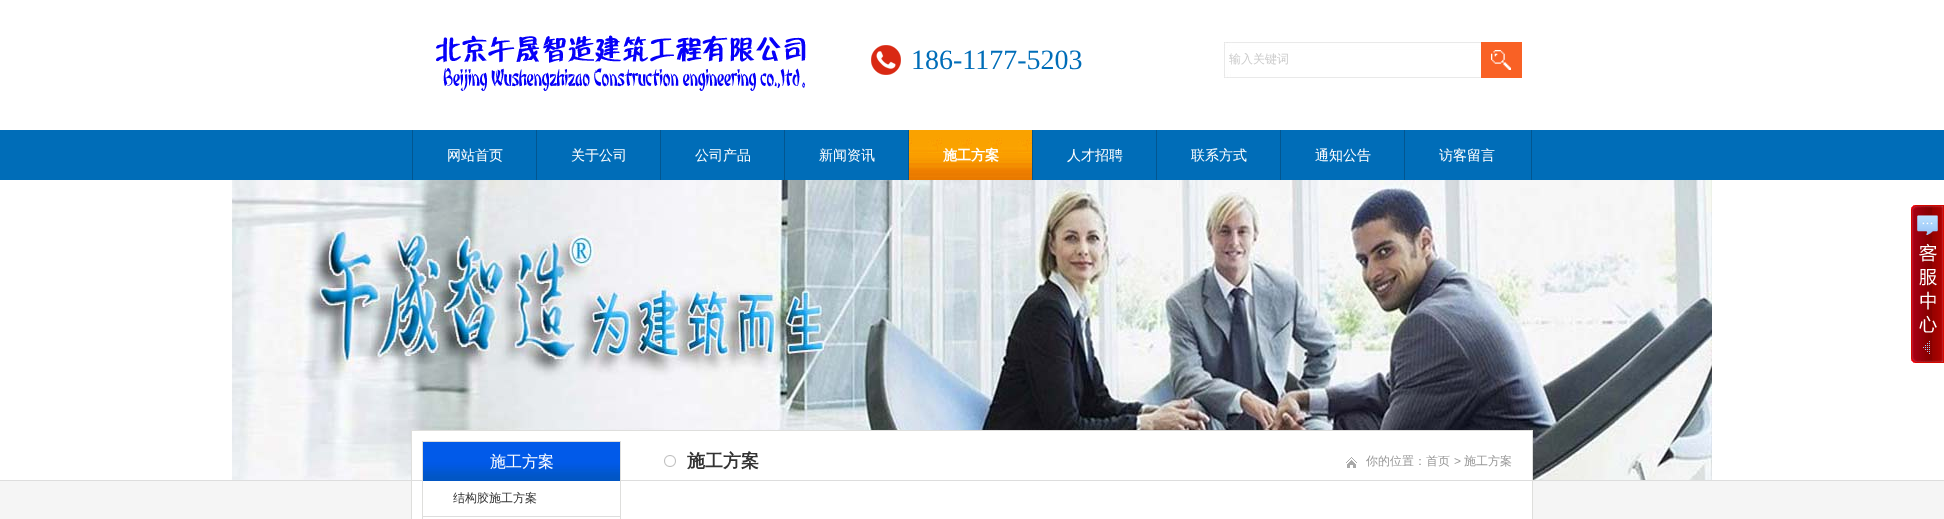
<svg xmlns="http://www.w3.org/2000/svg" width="1944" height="519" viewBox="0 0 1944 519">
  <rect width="100%" height="100%" fill="#f5f5f5"/>
  <rect x="0" y="0" width="1944" height="130" fill="#ffffff"/>
  <image x="436" y="35" width="370" height="56" href="img1.png"/>
  <image x="871" y="45" width="30" height="30" href="img2.png"/>
  <text x="911" y="69" font-family="Liberation Serif" font-size="28" fill="#006db8">186-1177-5203</text>
  <image x="1224" y="42" width="298" height="36" href="img3.png"/>
  <text x="1229" y="63" font-family="WenQuanYi Zen Hei" font-size="12" font-weight="500" fill="#cccccc">输入关键词</text>
  <rect x="0" y="130" width="1944" height="50" fill="#006db8"/>
  <rect x="1531" y="130" width="1" height="50" fill="#03568f"/>
  <rect x="412" y="130" width="1" height="50" fill="#03568f"/>
  <text x="447" y="160" font-family="WenQuanYi Zen Hei" font-size="14" font-weight="500" fill="#ffffff">网站首页</text>
  <rect x="536" y="130" width="1" height="50" fill="#03568f"/>
  <text x="571" y="160" font-family="WenQuanYi Zen Hei" font-size="14" font-weight="500" fill="#ffffff">关于公司</text>
  <rect x="660" y="130" width="1" height="50" fill="#03568f"/>
  <text x="695" y="160" font-family="WenQuanYi Zen Hei" font-size="14" font-weight="500" fill="#ffffff">公司产品</text>
  <rect x="784" y="130" width="1" height="50" fill="#03568f"/>
  <text x="819" y="160" font-family="WenQuanYi Zen Hei" font-size="14" font-weight="500" fill="#ffffff">新闻资讯</text>
  <image x="909" y="130" width="123" height="50" href="img4.png"/>
  <rect x="908" y="130" width="1" height="50" fill="#03568f"/>
  <text x="943" y="160" font-family="WenQuanYi Zen Hei" font-size="14" font-weight="bold" fill="#ffffff">施工方案</text>
  <rect x="1032" y="130" width="1" height="50" fill="#03568f"/>
  <text x="1067" y="160" font-family="WenQuanYi Zen Hei" font-size="14" font-weight="500" fill="#ffffff">人才招聘</text>
  <rect x="1156" y="130" width="1" height="50" fill="#03568f"/>
  <text x="1191" y="160" font-family="WenQuanYi Zen Hei" font-size="14" font-weight="500" fill="#ffffff">联系方式</text>
  <rect x="1280" y="130" width="1" height="50" fill="#03568f"/>
  <text x="1315" y="160" font-family="WenQuanYi Zen Hei" font-size="14" font-weight="500" fill="#ffffff">通知公告</text>
  <rect x="1404" y="130" width="1" height="50" fill="#03568f"/>
  <text x="1439" y="160" font-family="WenQuanYi Zen Hei" font-size="14" font-weight="500" fill="#ffffff">访客留言</text>
  <rect x="0" y="180" width="1944" height="300" fill="#ffffff"/>
  <image x="1911" y="205" width="33" height="158" href="img5.png"/>
  <rect x="0" y="480" width="1944" height="1" fill="#dddddd"/>
  <image x="232" y="180" width="1480" height="300" href="img6.png"/>
  <rect x="412" y="431" width="1120" height="88" fill="#ffffff"/>
  <rect x="411" y="480" width="1122" height="1" fill="#dddddd"/>
  <rect x="411.5" y="430.5" width="1121" height="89" fill="none" stroke="#dededc"/>
  <rect x="422.5" y="441.5" width="198" height="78" fill="none" stroke="#dededc"/>
  <image x="423" y="442" width="197" height="39" href="img7.png"/>
  <text x="490" y="467" font-family="WenQuanYi Zen Hei" font-size="16" font-weight="500" fill="#ffffff">施工方案</text>
  <rect x="423" y="516" width="197" height="1" fill="#dddddd"/>
  <text x="453" y="502" font-family="WenQuanYi Zen Hei" font-size="12" font-weight="500" fill="#333333">结构胶施工方案</text>
  <image x="664" y="455" width="12" height="12" href="img8.png"/>
  <text x="687" y="467" font-family="WenQuanYi Zen Hei" font-size="18" font-weight="bold" fill="#333333">施工方案</text>
  <image x="1346" y="457" width="11" height="11" href="img9.png"/>
  <text x="1366" y="465" font-family="WenQuanYi Zen Hei" font-size="12" font-weight="500" fill="#999999">你的位置：首页</text>
  <text x="1454" y="465" font-family="Liberation Sans" font-size="12" fill="#999999">&gt;</text>
  <text x="1464" y="465" font-family="WenQuanYi Zen Hei" font-size="12" font-weight="500" fill="#999999">施工方案</text>
</svg>
